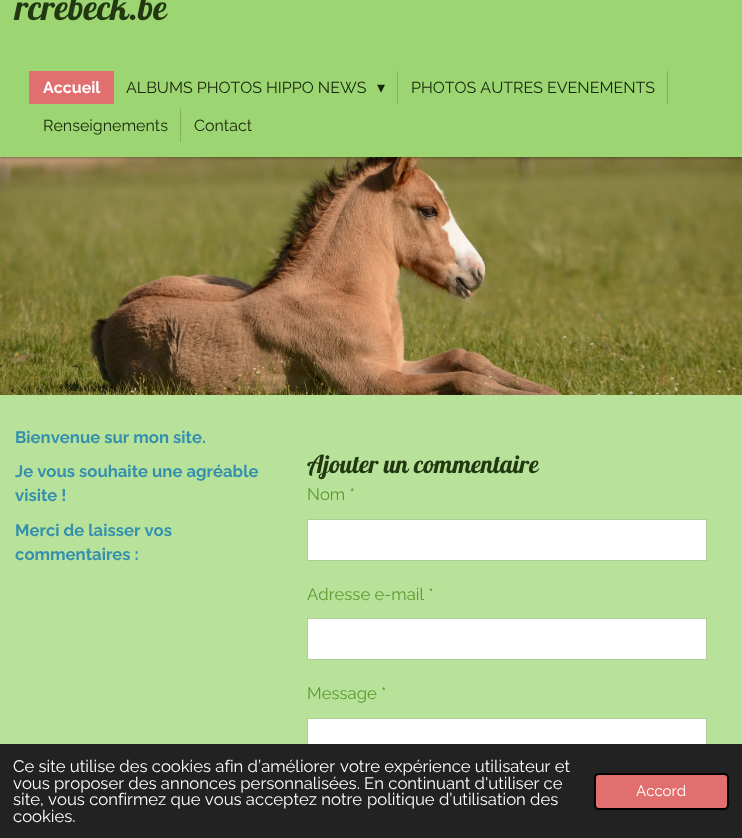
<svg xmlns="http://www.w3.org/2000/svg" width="742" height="838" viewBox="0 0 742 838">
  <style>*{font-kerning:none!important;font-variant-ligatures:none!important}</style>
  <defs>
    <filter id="blur1" x="-50%" y="-200%" width="200%" height="500%"><feGaussianBlur stdDeviation="1.5"/></filter>
  </defs>
  <rect width="100%" height="100%" fill="#b8e19a"/>
  <image x="0" y="157" width="742" height="238" href="img1.png"/>
  <rect x="0" y="-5" width="742" height="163" fill="#000000" fill-opacity="0.3" filter="url(#blur1)"/>
  <rect x="0" y="0" width="742" height="157" fill="#9dd573"/>
  <text x="15" y="20" font-family="Lobster" font-size="35" fill="#213811">rcrebeck.be</text>
  <rect x="29" y="71" width="85" height="33" fill="#e26f6f"/>
  <text x="43" y="93" font-family="Raleway" font-size="16" font-weight="bold" fill="#ffffff">Accueil</text>
  <text x="126" y="93" font-family="Raleway" font-size="16" fill="#16250b">ALBUMS PHOTOS HIPPO NEWS</text>
  <text x="377" y="93" font-family="DejaVu Sans" font-size="16" fill="#16250b">▾</text>
  <rect x="397" y="71" width="1" height="33" fill="#82b25e"/>
  <text x="411" y="93" font-family="Raleway" font-size="16" fill="#16250b">PHOTOS AUTRES EVENEMENTS</text>
  <rect x="667" y="71" width="1" height="33" fill="#82b25e"/>
  <text x="43" y="131" font-family="Raleway" font-size="16" fill="#16250b">Renseignements</text>
  <rect x="180" y="109" width="1" height="33" fill="#82b25e"/>
  <text x="194" y="131" font-family="Raleway" font-size="16" fill="#16250b">Contact</text>
  <text x="15" y="443" font-family="Raleway" font-size="16.7" font-weight="bold" fill="#3490ae">Bienvenue sur mon site.</text>
  <text x="15" y="477" font-family="Raleway" font-size="16.7" font-weight="bold" fill="#3490ae">Je vous souhaite une agréable</text>
  <text x="15" y="501" font-family="Raleway" font-size="16.7" font-weight="bold" fill="#3490ae">visite !</text>
  <text x="15" y="536" font-family="Raleway" font-size="16.7" font-weight="bold" fill="#3490ae">Merci de laisser vos</text>
  <text x="15" y="560" font-family="Raleway" font-size="16.7" font-weight="bold" fill="#3490ae">commentaires :</text>
  <text x="307" y="473" font-family="Lobster" font-size="24.75" fill="#213811">Ajouter un commentaire</text>
  <text x="307" y="500" font-family="Raleway" font-size="16.7" fill="#5c9b2e">Nom *</text>
  <rect x="307.5" y="519.5" width="399" height="41" fill="#ffffff" stroke="#aecd97"/>
  <text x="307" y="600" font-family="Raleway" font-size="16.7" fill="#5c9b2e">Adresse e-mail *</text>
  <rect x="307.5" y="618.5" width="399" height="41" fill="#ffffff" stroke="#aecd97"/>
  <text x="307" y="699" font-family="Raleway" font-size="16.7" fill="#5c9b2e">Message *</text>
  <rect x="308" y="719" width="398" height="25" fill="#ffffff"/>
  <rect x="307.5" y="718.5" width="399" height="99" fill="none" stroke="#aecd97"/>
  <rect x="0" y="744" width="742" height="94" fill="#222222"/>
  <text x="13" y="772" font-family="Raleway" font-size="16.7" fill="#ffffff">Ce site utilise des cookies afin d’améliorer</text>
  <text x="340" y="772" font-family="Raleway" font-size="16.7" fill="#ffffff">votre expérience utilisateur et</text>
  <text x="13" y="789" font-family="Raleway" font-size="16.7" fill="#ffffff">vous proposer des annonces personnalisées. En continuant d'utiliser ce</text>
  <text x="13" y="805" font-family="Raleway" font-size="16.7" fill="#ffffff">site, vous confirmez que vous acceptez notre</text>
  <text x="367" y="805" font-family="Raleway" font-size="16.7" fill="#ffffff">politique d’utilisation des</text>
  <text x="13" y="822" font-family="Raleway" font-size="16.7" fill="#ffffff">cookies.</text>
  <rect x="595" y="774" width="133" height="35" rx="4" fill="#e26f6f" stroke="#000000" stroke-width="2"/>
  <text x="636" y="796" font-family="Raleway" font-size="15" fill="#ffffff">Accord</text>
</svg>
